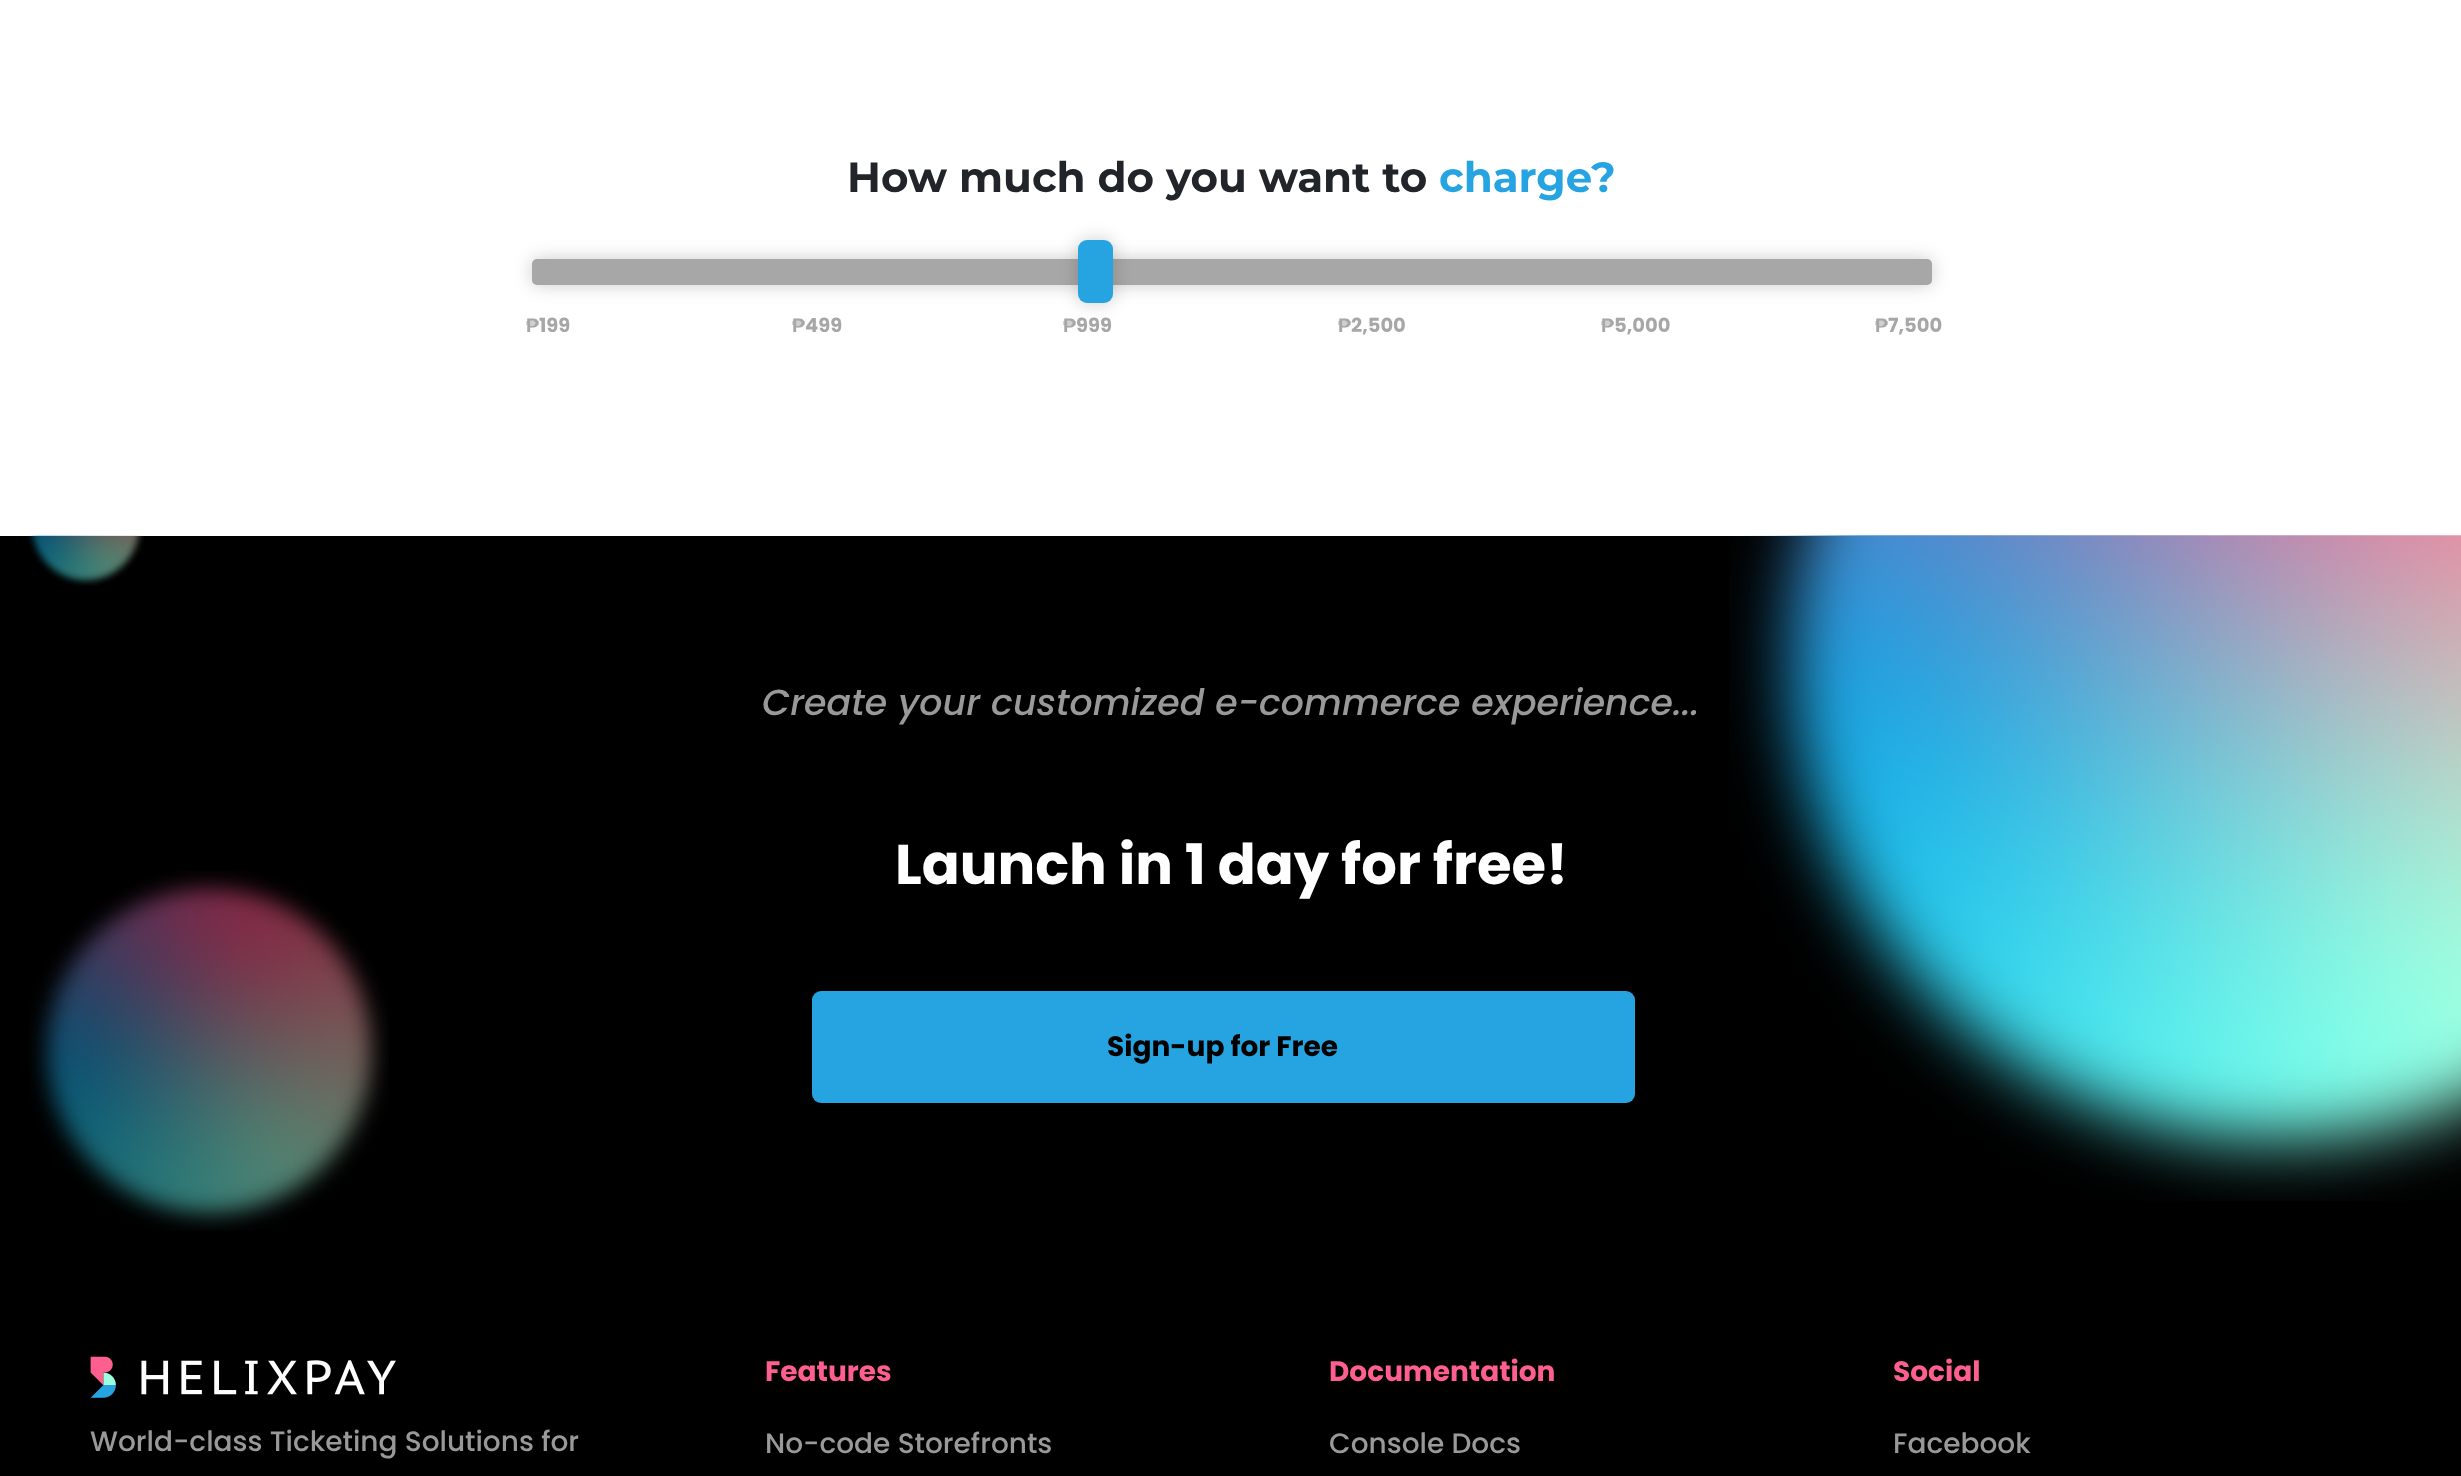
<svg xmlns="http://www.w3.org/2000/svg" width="2461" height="1476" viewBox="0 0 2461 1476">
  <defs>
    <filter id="blur1" x="-50%" y="-200%" width="200%" height="500%"><feGaussianBlur stdDeviation="9"/></filter>
  </defs>
  <rect width="100%" height="100%" fill="#ffffff"/>
  <text x="847" y="192" font-family="Montserrat" font-size="42" font-weight="bold" fill="#212529">How much do you want to</text>
  <text x="1439" y="192" font-family="Montserrat" font-size="42" font-weight="bold" fill="#25a4e1">charge?</text>
  <rect x="532" y="259" width="1400" height="26" rx="5" fill="#000000" fill-opacity="0.2" filter="url(#blur1)"/>
  <rect x="532" y="259" width="1400" height="26" rx="5" fill="#a7a7a7"/>
  <rect x="1078" y="240" width="35" height="63" rx="9" fill="#000000" fill-opacity="0.2" filter="url(#blur1)"/>
  <rect x="1078" y="240" width="35" height="63" rx="9" fill="#25a4e1"/>
  <text x="526" y="332" font-family="Liberation Sans" font-size="19.5" font-weight="bold" fill="#a7a7a7">₱</text>
  <text x="539" y="332" font-family="Poppins" font-size="19.5" font-weight="bold" fill="#a7a7a7">199</text>
  <text x="792" y="332" font-family="Liberation Sans" font-size="19.5" font-weight="bold" fill="#a7a7a7">₱</text>
  <text x="805" y="332" font-family="Poppins" font-size="19.5" font-weight="bold" fill="#a7a7a7">499</text>
  <text x="1063" y="332" font-family="Liberation Sans" font-size="19.5" font-weight="bold" fill="#a7a7a7">₱</text>
  <text x="1076" y="332" font-family="Poppins" font-size="19.5" font-weight="bold" fill="#a7a7a7">999</text>
  <text x="1338" y="332" font-family="Liberation Sans" font-size="19.5" font-weight="bold" fill="#a7a7a7">₱</text>
  <text x="1351" y="332" font-family="Poppins" font-size="19.5" font-weight="bold" fill="#a7a7a7">2,500</text>
  <text x="1601" y="332" font-family="Liberation Sans" font-size="19.5" font-weight="bold" fill="#a7a7a7">₱</text>
  <text x="1614" y="332" font-family="Poppins" font-size="19.5" font-weight="bold" fill="#a7a7a7">5,000</text>
  <text x="1875" y="332" font-family="Liberation Sans" font-size="19.5" font-weight="bold" fill="#a7a7a7">₱</text>
  <text x="1888" y="332" font-family="Poppins" font-size="19.5" font-weight="bold" fill="#a7a7a7">7,500</text>
  <rect x="0" y="536" width="2461" height="940" fill="#000000"/>
  <image x="27" y="535" width="117" height="51" href="img1.png"/>
  <text x="762" y="715" font-family="Poppins" font-size="36.4" font-weight="500" font-style="italic" fill="#999999">Create your customized e-commerce experience...</text>
  <text x="895" y="884" font-family="Poppins" font-size="56" font-weight="bold" fill="#ffffff">Launch in 1 day for free!</text>
  <image x="1729" y="535" width="732" height="666" href="img2.png"/>
  <image x="29" y="871" width="360" height="360" href="img3.png"/>
  <rect x="812" y="991" width="823" height="112" rx="9" fill="#25a4e1"/>
  <text x="1107" y="1056" font-family="Poppins" font-size="28" font-weight="bold" fill="#000000">Sign-up for Free</text>
  <image x="90" y="1356" width="306" height="42" href="img4.png"/>
  <text x="90" y="1451" font-family="Poppins" font-size="28" font-weight="500" fill="#999999">World-class Ticketing Solutions for</text>
  <text x="765" y="1381" font-family="Poppins" font-size="28" font-weight="bold" fill="#ff5f8f">Features</text>
  <text x="765" y="1453" font-family="Poppins" font-size="28" font-weight="500" fill="#999999">No-code Storefronts</text>
  <text x="1329" y="1381" font-family="Poppins" font-size="28" font-weight="bold" fill="#ff5f8f">Documentation</text>
  <text x="1329" y="1453" font-family="Poppins" font-size="28" font-weight="500" fill="#999999">Console Docs</text>
  <text x="1893" y="1381" font-family="Poppins" font-size="28" font-weight="bold" fill="#ff5f8f">Social</text>
  <text x="1893" y="1453" font-family="Poppins" font-size="28" font-weight="500" fill="#999999">Facebook</text>
</svg>
